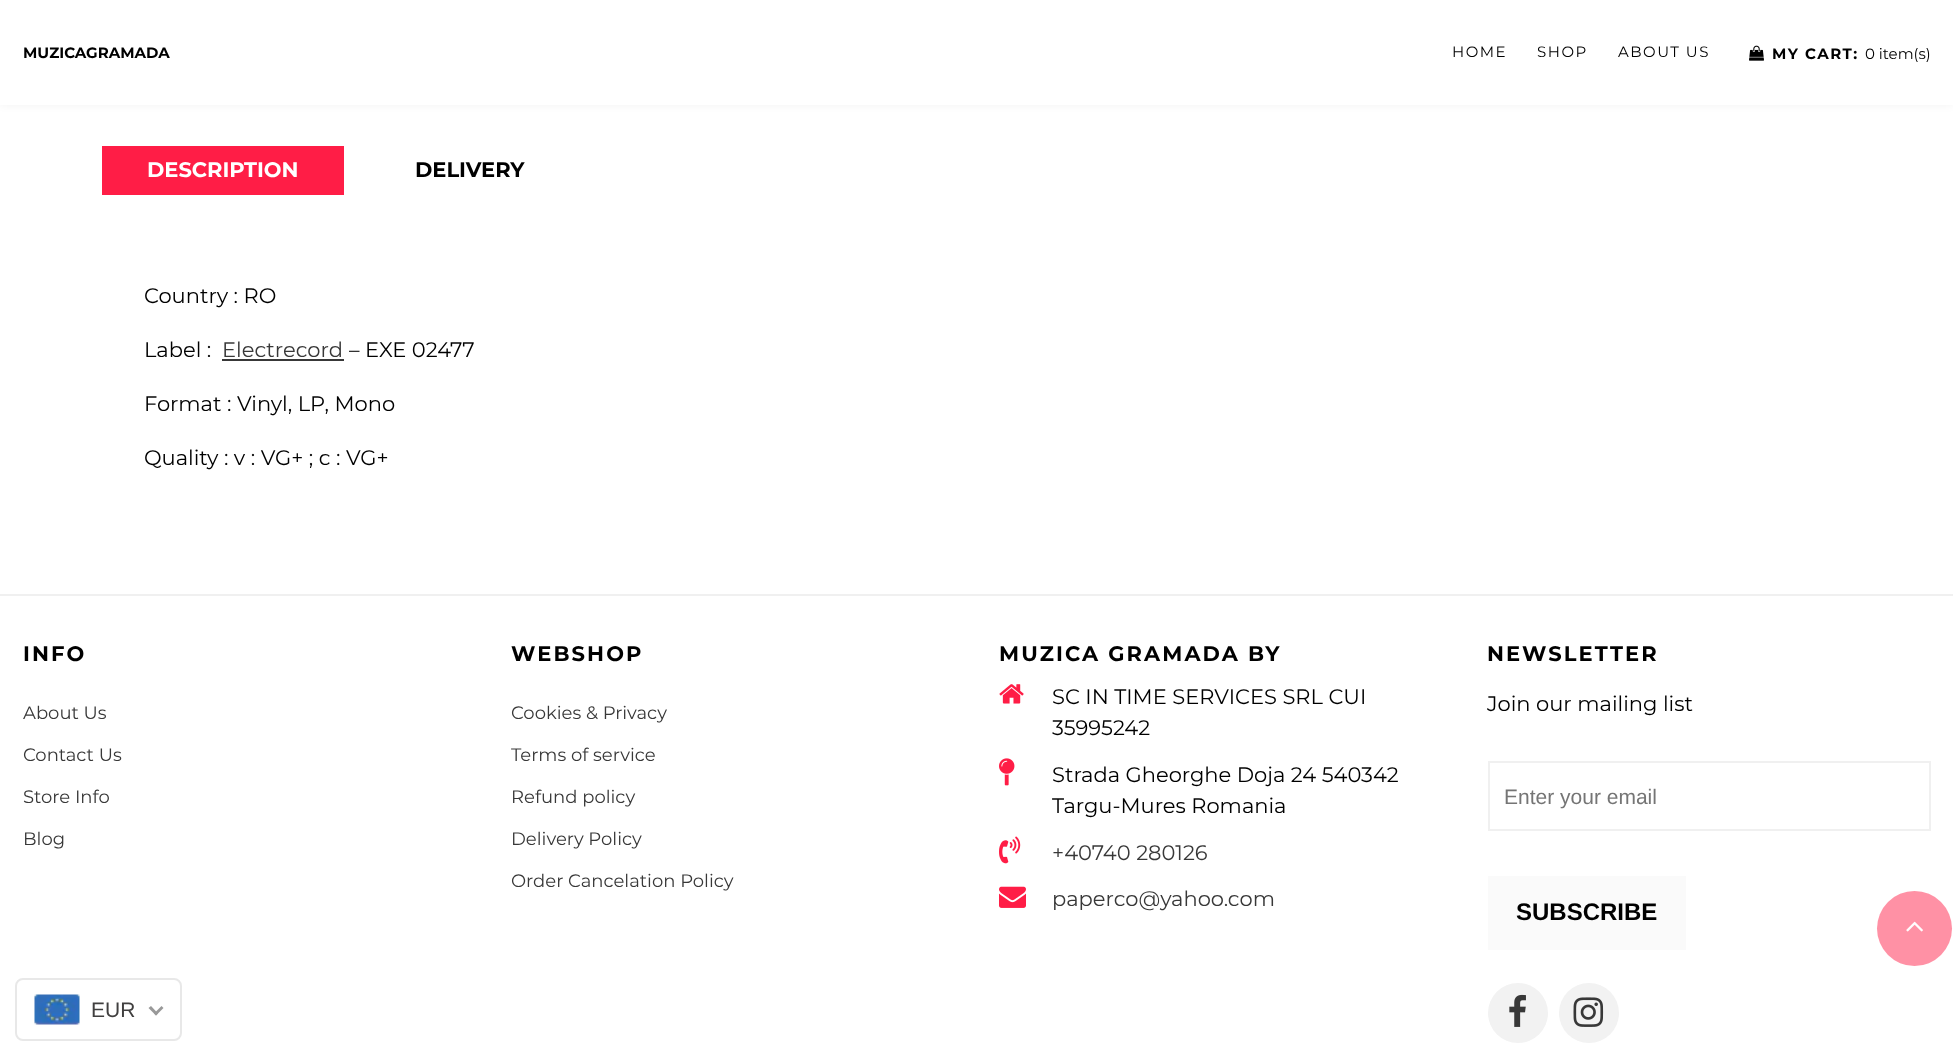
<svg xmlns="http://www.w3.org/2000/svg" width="1953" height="1056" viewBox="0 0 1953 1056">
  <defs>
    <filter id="blur1" x="-50%" y="-200%" width="200%" height="500%"><feGaussianBlur stdDeviation="4"/></filter>
  </defs>
  <rect width="100%" height="100%" fill="#ffffff"/>
  <rect x="0" y="0" width="1953" height="105" fill="#000000" fill-opacity="0.05" filter="url(#blur1)"/>
  <rect x="0" y="0" width="1953" height="105" fill="#ffffff"/>
  <text x="23" y="58" font-family="Montserrat" font-size="15" font-weight="bold" fill="#000000">MUZICAGRAMADA</text>
  <text x="1452" y="57" font-family="Montserrat" font-size="15" letter-spacing="1.5" fill="#000000">HOME</text>
  <text x="1537" y="57" font-family="Montserrat" font-size="15" letter-spacing="1.5" fill="#000000">SHOP</text>
  <text x="1618" y="57" font-family="Montserrat" font-size="15" letter-spacing="1.5" fill="#000000">ABOUT US</text>
  <image x="1749" y="45" width="15" height="16" href="img1.png"/>
  <text x="1772" y="59" font-family="Montserrat" font-size="15" font-weight="bold" letter-spacing="1.5" fill="#000000">MY CART:</text>
  <text x="1865" y="59" font-family="Montserrat" font-size="15" fill="#000000">0 item(s)</text>
  <rect x="102" y="146" width="242" height="49" fill="#ff1d46"/>
  <text x="147" y="177" font-family="Montserrat" font-size="21" font-weight="bold" fill="#ffffff">DESCRIPTION</text>
  <text x="415" y="177" font-family="Montserrat" font-size="21" font-weight="bold" fill="#000000">DELIVERY</text>
  <text x="144" y="303" font-family="Montserrat" font-size="21" fill="#000000">Country : RO</text>
  <text x="144" y="357" font-family="Montserrat" font-size="21" fill="#000000">Label :</text>
  <text x="222" y="357" font-family="Montserrat" font-size="21" fill="#383838">Electrecord</text>
  <rect x="222" y="359" width="122" height="2" fill="#383838"/>
  <text x="349" y="357" font-family="Montserrat" font-size="21" fill="#000000">– EXE 02477</text>
  <text x="144" y="411" font-family="Montserrat" font-size="21" fill="#000000">Format : Vinyl, LP, Mono</text>
  <text x="144" y="465" font-family="Montserrat" font-size="21" fill="#000000">Quality : v : VG+ ; c : VG+</text>
  <rect x="0" y="594" width="1953" height="2" fill="#f0f0f0"/>
  <text x="23" y="661" font-family="Montserrat" font-size="21" font-weight="bold" letter-spacing="2.1" fill="#000000">INFO</text>
  <text x="23" y="719" font-family="Montserrat" font-size="18" fill="#383838">About Us</text>
  <text x="23" y="761" font-family="Montserrat" font-size="18" fill="#383838">Contact Us</text>
  <text x="23" y="803" font-family="Montserrat" font-size="18" fill="#383838">Store Info</text>
  <text x="23" y="845" font-family="Montserrat" font-size="18" fill="#383838">Blog</text>
  <text x="511" y="661" font-family="Montserrat" font-size="21" font-weight="bold" letter-spacing="2.1" fill="#000000">WEBSHOP</text>
  <text x="511" y="719" font-family="Montserrat" font-size="18" fill="#383838">Cookies &amp; Privacy</text>
  <text x="511" y="761" font-family="Montserrat" font-size="18" fill="#383838">Terms of service</text>
  <text x="511" y="803" font-family="Montserrat" font-size="18" fill="#383838">Refund policy</text>
  <text x="511" y="845" font-family="Montserrat" font-size="18" fill="#383838">Delivery Policy</text>
  <text x="511" y="887" font-family="Montserrat" font-size="18" fill="#383838">Order Cancelation Policy</text>
  <text x="999" y="661" font-family="Montserrat" font-size="21" font-weight="bold" letter-spacing="2.1" fill="#000000">MUZICA GRAMADA BY</text>
  <image x="999" y="684" width="25" height="20" href="img2.png"/>
  <text x="1052" y="704" font-family="Montserrat" font-size="21" fill="#000000">SC IN TIME SERVICES SRL CUI</text>
  <text x="1052" y="735" font-family="Montserrat" font-size="21" fill="#000000">35995242</text>
  <image x="999" y="758" width="16" height="28" href="img3.png"/>
  <text x="1052" y="782" font-family="Montserrat" font-size="21" fill="#000000">Strada Gheorghe Doja 24 540342</text>
  <text x="1052" y="813" font-family="Montserrat" font-size="21" fill="#000000">Targu-Mures Romania</text>
  <image x="999" y="836" width="22" height="28" href="img4.png"/>
  <text x="1052" y="860" font-family="Montserrat" font-size="21" fill="#383838">+40740 280126</text>
  <image x="999" y="886" width="27" height="22" href="img5.png"/>
  <text x="1052" y="906" font-family="Montserrat" font-size="21" fill="#383838">paperco@yahoo.com</text>
  <text x="1487" y="661" font-family="Montserrat" font-size="21" font-weight="bold" letter-spacing="2.1" fill="#000000">NEWSLETTER</text>
  <text x="1487" y="711" font-family="Montserrat" font-size="21" fill="#000000">Join our mailing list</text>
  <rect x="1489" y="762" width="441" height="68" fill="none" stroke="#f0f0f0" stroke-width="2"/>
  <text x="1504" y="804" font-family="Liberation Sans" font-size="21" fill="#757575">Enter your email</text>
  <rect x="1488" y="876" width="198" height="74" fill="#fafafa"/>
  <text x="1516" y="920" font-family="Liberation Sans" font-size="24" font-weight="bold" fill="#000000">SUBSCRIBE</text>
  <circle cx="1518" cy="1013" r="30" fill="#f2f2f2"/>
  <image x="1509" y="994" width="17" height="33" href="img6.png"/>
  <circle cx="1589" cy="1013" r="30" fill="#f2f2f2"/>
  <image x="1573" y="997" width="31" height="30" href="img7.png"/>
  <circle cx="1914.5" cy="928.5" r="37.5" fill="#ff91a5"/>
  <image x="1906" y="921" width="17" height="11" href="img8.png"/>
  <rect x="16" y="979" width="165" height="61" rx="7" fill="none" stroke="#e8e8e8" stroke-width="2"/>
  <image x="34" y="994" width="46" height="31" href="img9.png"/>
  <text x="91" y="1017" font-family="Liberation Sans" font-size="21" fill="#403f3f">EUR</text>
  <path d="M161.5 1006L163.5 1008L156 1015.5L154 1013.5Z" fill="#999999"/>
  <path d="M151 1006L158 1013.5L156 1015.5L148.5 1008Z" fill="#999999"/>
</svg>
